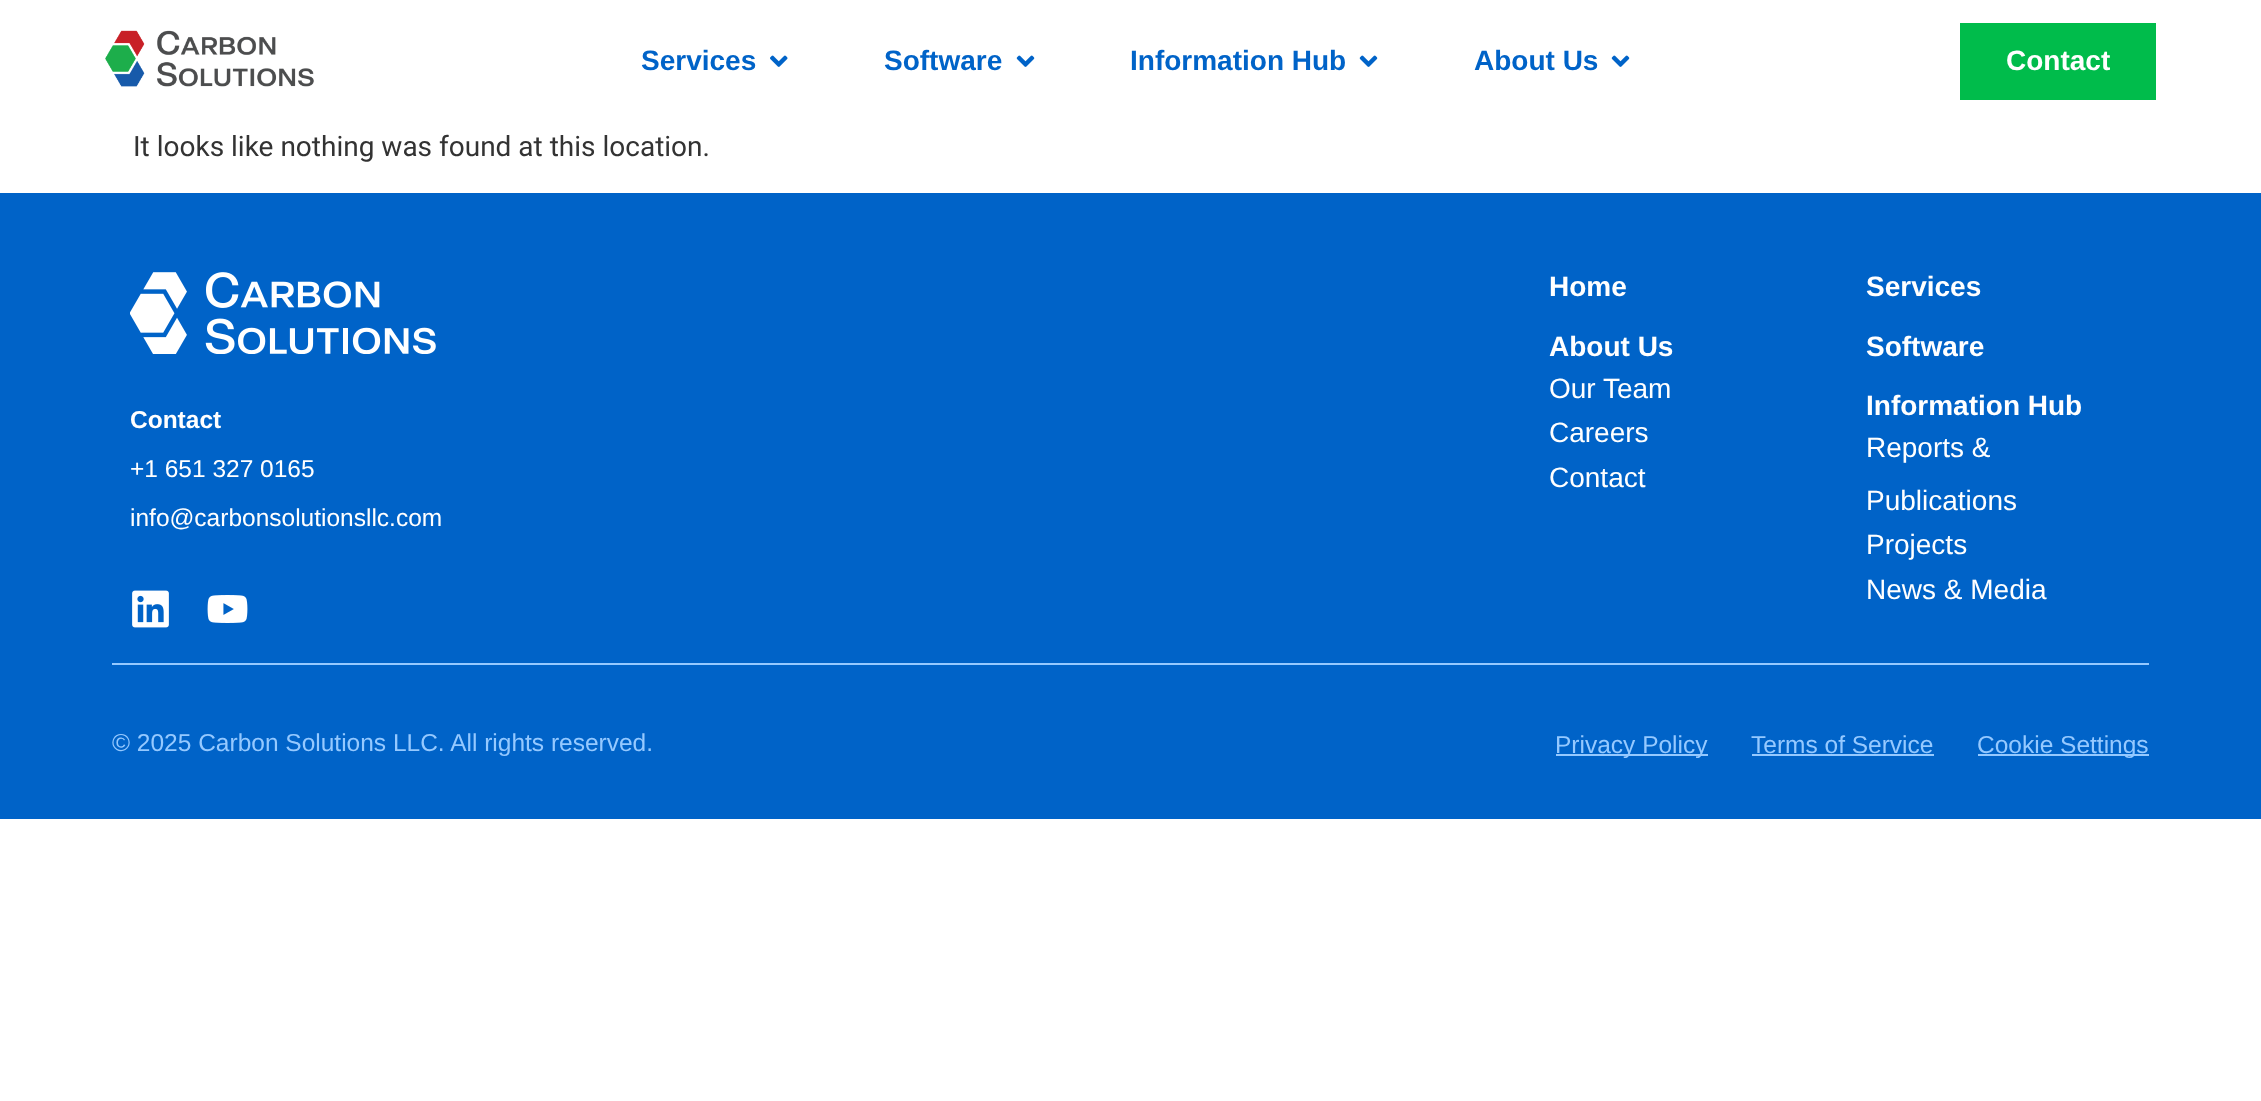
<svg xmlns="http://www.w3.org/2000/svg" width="2261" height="1101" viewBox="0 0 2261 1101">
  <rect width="100%" height="100%" fill="#ffffff"/>
  <image x="105" y="30" width="209" height="57" href="img1.png"/>
  <text x="641" y="70" font-family="Liberation Sans" font-size="28" font-weight="bold" fill="#0063c8">Services</text>
  <image x="770" y="55" width="18" height="12" href="img2.png"/>
  <text x="884" y="70" font-family="Liberation Sans" font-size="28" font-weight="bold" fill="#0063c8">Software</text>
  <image x="1016" y="55" width="19" height="12" href="img3.png"/>
  <text x="1130" y="70" font-family="Liberation Sans" font-size="28" font-weight="bold" fill="#0063c8">Information Hub</text>
  <image x="1359" y="55" width="19" height="12" href="img3.png"/>
  <text x="1474" y="70" font-family="Liberation Sans" font-size="28" font-weight="bold" fill="#0063c8">About Us</text>
  <image x="1611" y="55" width="19" height="12" href="img3.png"/>
  <rect x="1960" y="23" width="196" height="77" fill="#00bc4b"/>
  <text x="2006" y="70" font-family="Liberation Sans" font-size="28" font-weight="bold" fill="#ffffff">Contact</text>
  <text x="133" y="156" font-family="Roboto" font-size="28" fill="#333333">It looks like nothing was found at this location.</text>
  <rect x="0" y="193" width="2261" height="626" fill="#0063c8"/>
  <image x="130" y="272" width="306" height="82" href="img4.png"/>
  <text x="130" y="428" font-family="Liberation Sans" font-size="24.5" font-weight="bold" fill="#ffffff">Contact</text>
  <text x="130" y="477" font-family="Liberation Sans" font-size="24.5" fill="#ffffff">+1 651 327 0165</text>
  <text x="130" y="526" font-family="Liberation Sans" font-size="24.5" fill="#ffffff">info@carbonsolutionsllc.com</text>
  <image x="132" y="590" width="37" height="38" href="img5.png"/>
  <image x="207" y="595" width="41" height="28" href="img6.png"/>
  <text x="1549" y="296" font-family="Liberation Sans" font-size="28" font-weight="bold" fill="#ffffff">Home</text>
  <text x="1549" y="356" font-family="Liberation Sans" font-size="28" font-weight="bold" fill="#ffffff">About Us</text>
  <text x="1549" y="398" font-family="Liberation Sans" font-size="28" fill="#ffffff">Our Team</text>
  <text x="1549" y="442" font-family="Liberation Sans" font-size="28" fill="#ffffff">Careers</text>
  <text x="1549" y="487" font-family="Liberation Sans" font-size="28" fill="#ffffff">Contact</text>
  <text x="1866" y="296" font-family="Liberation Sans" font-size="28" font-weight="bold" fill="#ffffff">Services</text>
  <text x="1866" y="356" font-family="Liberation Sans" font-size="28" font-weight="bold" fill="#ffffff">Software</text>
  <text x="1866" y="415" font-family="Liberation Sans" font-size="28" font-weight="bold" fill="#ffffff">Information Hub</text>
  <text x="1866" y="457" font-family="Liberation Sans" font-size="28" fill="#ffffff">Reports &amp;</text>
  <text x="1866" y="510" font-family="Liberation Sans" font-size="28" fill="#ffffff">Publications</text>
  <text x="1866" y="554" font-family="Liberation Sans" font-size="28" fill="#ffffff">Projects</text>
  <text x="1866" y="599" font-family="Liberation Sans" font-size="28" fill="#ffffff">News &amp; Media</text>
  <rect x="112" y="663" width="2037" height="2" fill="#95c9ff"/>
  <text x="112" y="751" font-family="Liberation Sans" font-size="24.5" fill="#95c9ff">© 2025 Carbon Solutions LLC. All rights reserved.</text>
  <rect x="1556" y="754" width="152" height="2" fill="#95c9ff"/>
  <text x="1555" y="753" font-family="Liberation Sans" font-size="24.5" fill="#95c9ff">Privacy Policy</text>
  <text x="1751" y="753" font-family="Liberation Sans" font-size="24.5" fill="#95c9ff">Terms of Service</text>
  <rect x="1752" y="754" width="182" height="2" fill="#95c9ff"/>
  <rect x="1978" y="754" width="171" height="2" fill="#95c9ff"/>
  <text x="1977" y="753" font-family="Liberation Sans" font-size="24.5" fill="#95c9ff">Cookie Settings</text>
</svg>
